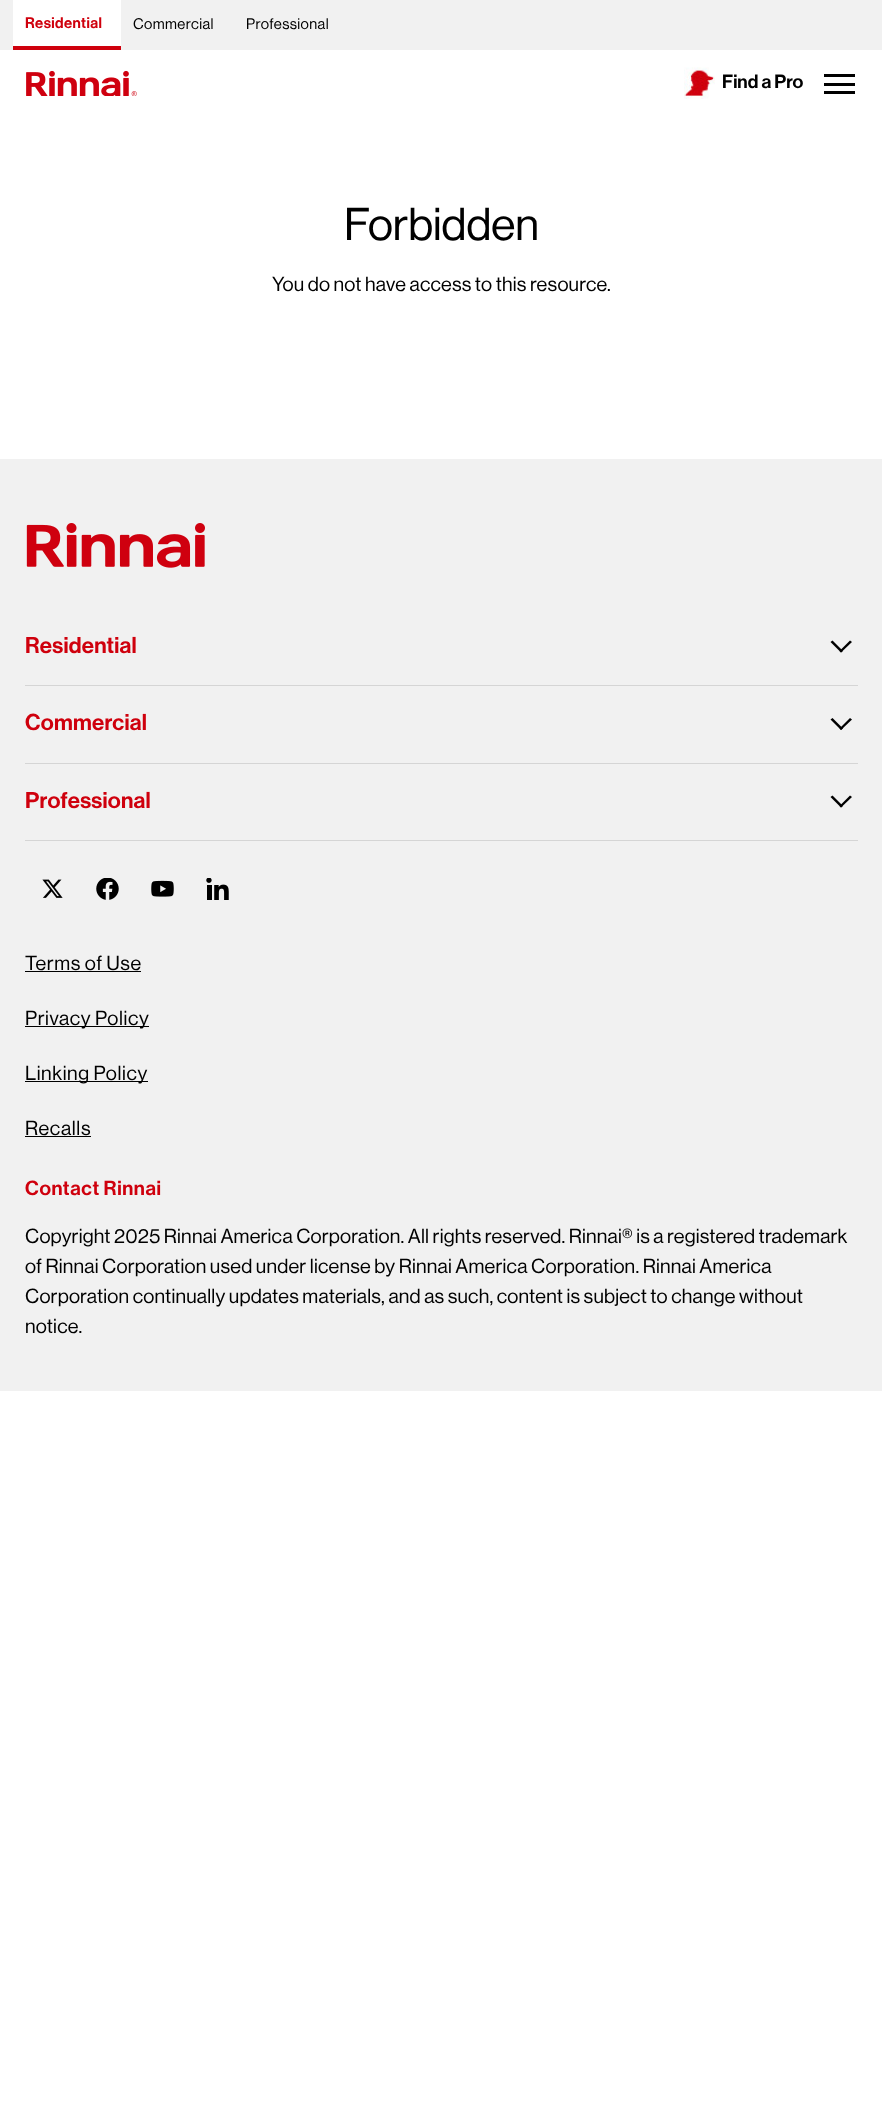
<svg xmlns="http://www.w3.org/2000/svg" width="882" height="2106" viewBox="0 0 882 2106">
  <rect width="100%" height="100%" fill="#ffffff"/>
  <rect x="0" y="0" width="882" height="50" fill="#f1f1f1"/>
  <rect x="13" y="0" width="108" height="46" fill="#ffffff"/>
  <rect x="13" y="46" width="108" height="4" fill="#cf000d"/>
  <text x="25" y="28" font-family="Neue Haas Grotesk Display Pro" font-size="15" font-weight="500" letter-spacing="0.4" fill="#cf000d">Residential</text>
  <text x="133" y="29" font-family="Neue Haas Grotesk Display Pro" font-size="15" letter-spacing="0.4" fill="#000000">Commercial</text>
  <text x="246" y="29" font-family="Neue Haas Grotesk Display Pro" font-size="15" letter-spacing="0.4" fill="#000000">Professional</text>
  <image x="26" y="70" width="111" height="26" href="img1.png"/>
  <image x="684" y="67" width="31" height="32" href="img2.png"/>
  <text x="722" y="88" font-family="Neue Haas Grotesk Display Pro" font-size="18.75" font-weight="500" fill="#000000">Find a Pro</text>
  <rect x="824" y="83" width="31" height="3" fill="#000000"/>
  <rect x="824" y="74" width="31" height="3" fill="#000000"/>
  <rect x="824" y="91" width="31" height="3" fill="#000000"/>
  <text x="344" y="240" font-family="Neue Haas Grotesk Display Pro" font-size="45" fill="#000000">Forbidden</text>
  <text x="272" y="291" font-family="Neue Haas Grotesk Display Pro" font-size="20" letter-spacing="0.2" fill="#000000">You do not have access to this resource.</text>
  <rect x="0" y="459" width="882" height="932" fill="#f1f1f1"/>
  <image x="26" y="523" width="179" height="45" href="img3.png"/>
  <rect x="25" y="685" width="833" height="1" fill="#d5d5d5"/>
  <text x="25" y="653" font-family="Neue Haas Grotesk Display Pro" font-size="22.5" font-weight="500" letter-spacing="0.25" fill="#cf000d">Residential</text>
  <path d="M850 640.5L852 642L841 652.5L839.5 651Z" fill="#000000"/>
  <path d="M832.5 640.5L843 651L841 652.5L830.5 642Z" fill="#000000"/>
  <rect x="25" y="763" width="833" height="1" fill="#d5d5d5"/>
  <text x="25" y="730" font-family="Neue Haas Grotesk Display Pro" font-size="22.5" font-weight="500" letter-spacing="0.25" fill="#cf000d">Commercial</text>
  <path d="M850 718L852 719.5L841 730L839.5 728.5Z" fill="#000000"/>
  <path d="M832.5 718L843 728.5L841 730L830.5 719.5Z" fill="#000000"/>
  <rect x="25" y="840" width="833" height="1" fill="#d5d5d5"/>
  <text x="25" y="808" font-family="Neue Haas Grotesk Display Pro" font-size="22.5" font-weight="500" letter-spacing="0.25" fill="#cf000d">Professional</text>
  <path d="M850 795.5L852 797L841 807.5L839.5 806Z" fill="#000000"/>
  <path d="M832.5 795.5L843 806L841 807.5L830.5 797Z" fill="#000000"/>
  <image x="42" y="879" width="21" height="19" href="img4.png"/>
  <image x="96" y="878" width="23" height="22" href="img5.png"/>
  <image x="151" y="880" width="23" height="17" href="img6.png"/>
  <image x="206" y="878" width="23" height="22" href="img7.png"/>
  <text x="25" y="970" font-family="Neue Haas Grotesk Display Pro" font-size="20" letter-spacing="0.6" fill="#000000">Terms of Use</text>
  <rect x="25" y="971" width="116" height="1" fill="#000000"/>
  <rect x="25" y="1026" width="124" height="1" fill="#000000"/>
  <text x="25" y="1025" font-family="Neue Haas Grotesk Display Pro" font-size="20" letter-spacing="0.6" fill="#000000">Privacy Policy</text>
  <rect x="25" y="1081" width="123" height="1" fill="#000000"/>
  <text x="25" y="1080" font-family="Neue Haas Grotesk Display Pro" font-size="20" letter-spacing="0.6" fill="#000000">Linking Policy</text>
  <text x="25" y="1135" font-family="Neue Haas Grotesk Display Pro" font-size="20" letter-spacing="0.6" fill="#000000">Recalls</text>
  <rect x="25" y="1136" width="66" height="1" fill="#000000"/>
  <text x="25" y="1195" font-family="Neue Haas Grotesk Display Pro" font-size="20" font-weight="500" letter-spacing="0.6" fill="#cf000d">Contact Rinnai</text>
  <text x="25" y="1243" font-family="Neue Haas Grotesk Display Pro" font-size="20" letter-spacing="0.2" fill="#000000">Copyright 2025 Rinnai America Corporation. All rights reserved. Rinnai® is a registered trademark</text>
  <text x="25" y="1273" font-family="Neue Haas Grotesk Display Pro" font-size="20" letter-spacing="0.2" fill="#000000">of Rinnai Corporation used under license by Rinnai America Corporation. Rinnai America</text>
  <text x="25" y="1303" font-family="Neue Haas Grotesk Display Pro" font-size="20" letter-spacing="0.2" fill="#000000">Corporation continually updates materials, and as such, content is subject to change without</text>
  <text x="25" y="1333" font-family="Neue Haas Grotesk Display Pro" font-size="20" letter-spacing="0.2" fill="#000000">notice.</text>
</svg>
